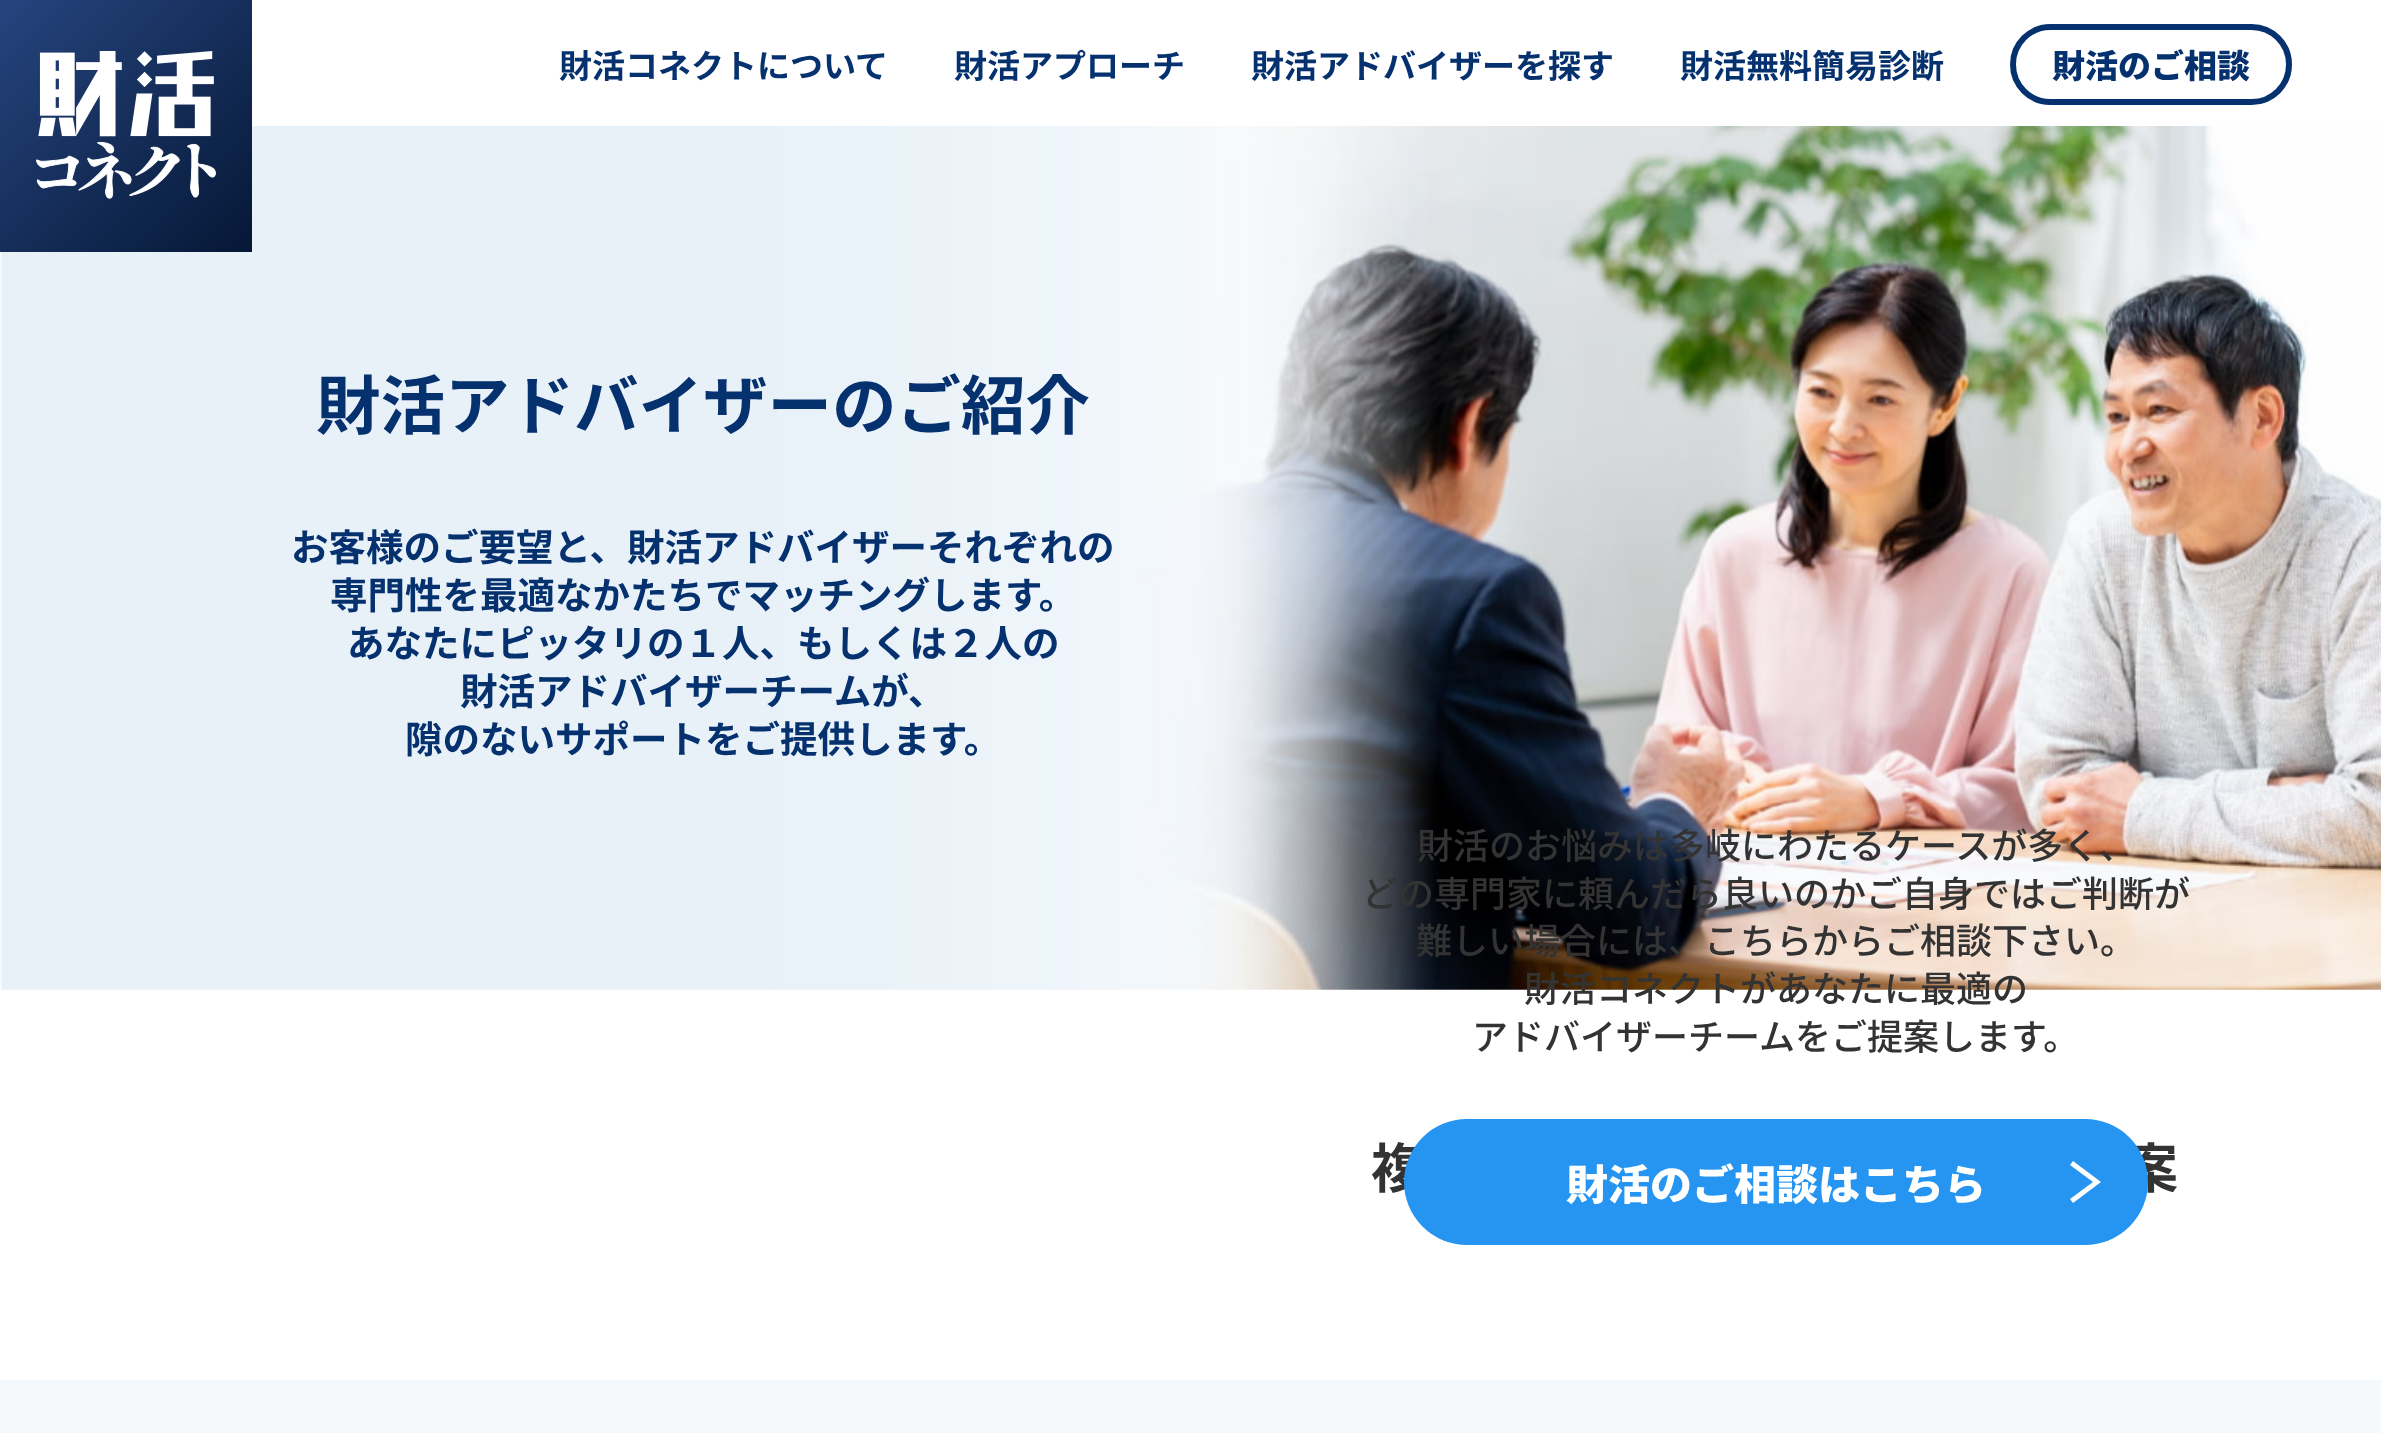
<svg xmlns="http://www.w3.org/2000/svg" width="2381" height="1433" viewBox="0 0 2381 1433">
  <defs>
    <linearGradient id="g1" gradientUnits="userSpaceOnUse" x1="0" y1="0" x2="252" y2="252"><stop offset="0" stop-color="#26457f"/><stop offset="1" stop-color="#051735"/></linearGradient>
  </defs>
  <rect width="100%" height="100%" fill="#ffffff"/>
  <image x="0" y="126" width="2381" height="864" href="img2.png"/>
  <rect x="0" y="0" width="252" height="252" fill="url(#g1)"/>
  <image x="36" y="51" width="180" height="148" href="img1.png"/>
  <text x="559" y="78" font-family="Noto Sans JP" font-size="33" font-weight="bold" fill="#05316f">財活コネクトについて</text>
  <text x="954" y="78" font-family="Noto Sans JP" font-size="33" font-weight="bold" fill="#05316f">財活アプローチ</text>
  <text x="1251" y="78" font-family="Noto Sans JP" font-size="33" font-weight="bold" fill="#05316f">財活アドバイザーを探す</text>
  <text x="1680" y="78" font-family="Noto Sans JP" font-size="33" font-weight="bold" fill="#05316f">財活無料簡易診断</text>
  <rect x="2013" y="27" width="276" height="75" rx="37.5" fill="none" stroke="#05316f" stroke-width="6"/>
  <text x="2052" y="78" font-family="Noto Sans JP" font-size="33" font-weight="900" fill="#05316f">財活のご相談</text>
  <text x="316" y="429" font-family="Noto Sans JP" font-size="64.5" font-weight="bold" fill="#05316f">財活アドバイザーのご紹介</text>
  <text x="291" y="561" font-family="Noto Sans JP" font-size="37.5" font-weight="bold" fill="#05316f">お客様のご要望と、財活アドバイザーそれぞれの</text>
  <text x="330" y="609" font-family="Noto Sans JP" font-size="37.5" font-weight="bold" fill="#05316f">専門性を最適なかたちでマッチングします。</text>
  <text x="347" y="657" font-family="Noto Sans JP" font-size="37.5" font-weight="bold" fill="#05316f">あなたにピッタリの１人、もしくは２人の</text>
  <text x="460" y="705" font-family="Noto Sans JP" font-size="37.5" font-weight="bold" fill="#05316f">財活アドバイザーチームが、</text>
  <text x="405" y="753" font-family="Noto Sans JP" font-size="37.5" font-weight="bold" fill="#05316f">隙のないサポートをご提供します。</text>
  <text x="1417" y="859" font-family="Noto Sans JP" font-size="36" font-weight="500" fill="#333333">財活のお悩みは多岐にわたるケースが多く、</text>
  <text x="1362" y="907" font-family="Noto Sans JP" font-size="36" font-weight="500" fill="#333333">どの専門家に頼んだら良いのかご自身ではご判断が</text>
  <text x="1416" y="954" font-family="Noto Sans JP" font-size="36" font-weight="500" fill="#333333">難しい場合には、こちらからご相談下さい。</text>
  <text x="1524" y="1002" font-family="Noto Sans JP" font-size="36" font-weight="500" fill="#333333">財活コネクトがあなたに最適の</text>
  <text x="1472" y="1050" font-family="Noto Sans JP" font-size="36" font-weight="500" fill="#333333">アドバイザーチームをご提案します。</text>
  <text x="1371" y="1188" font-family="Noto Sans JP" font-size="54" font-weight="bold" fill="#333333">複</text>
  <text x="2124" y="1188" font-family="Noto Sans JP" font-size="54" font-weight="bold" fill="#333333">案</text>
  <rect x="1404" y="1119" width="744" height="126" rx="63" fill="#2695f1"/>
  <text x="1566" y="1200" font-family="Noto Sans JP" font-size="42" font-weight="900" fill="#ffffff">財活のご相談はこちら</text>
  <path d="M2073 1203L2070 1199L2093 1182L2070 1165L2073 1161L2101 1182Z" fill="#ffffff"/>
  <rect x="0" y="1380" width="2381" height="53" fill="#f5f9fc"/>
</svg>
